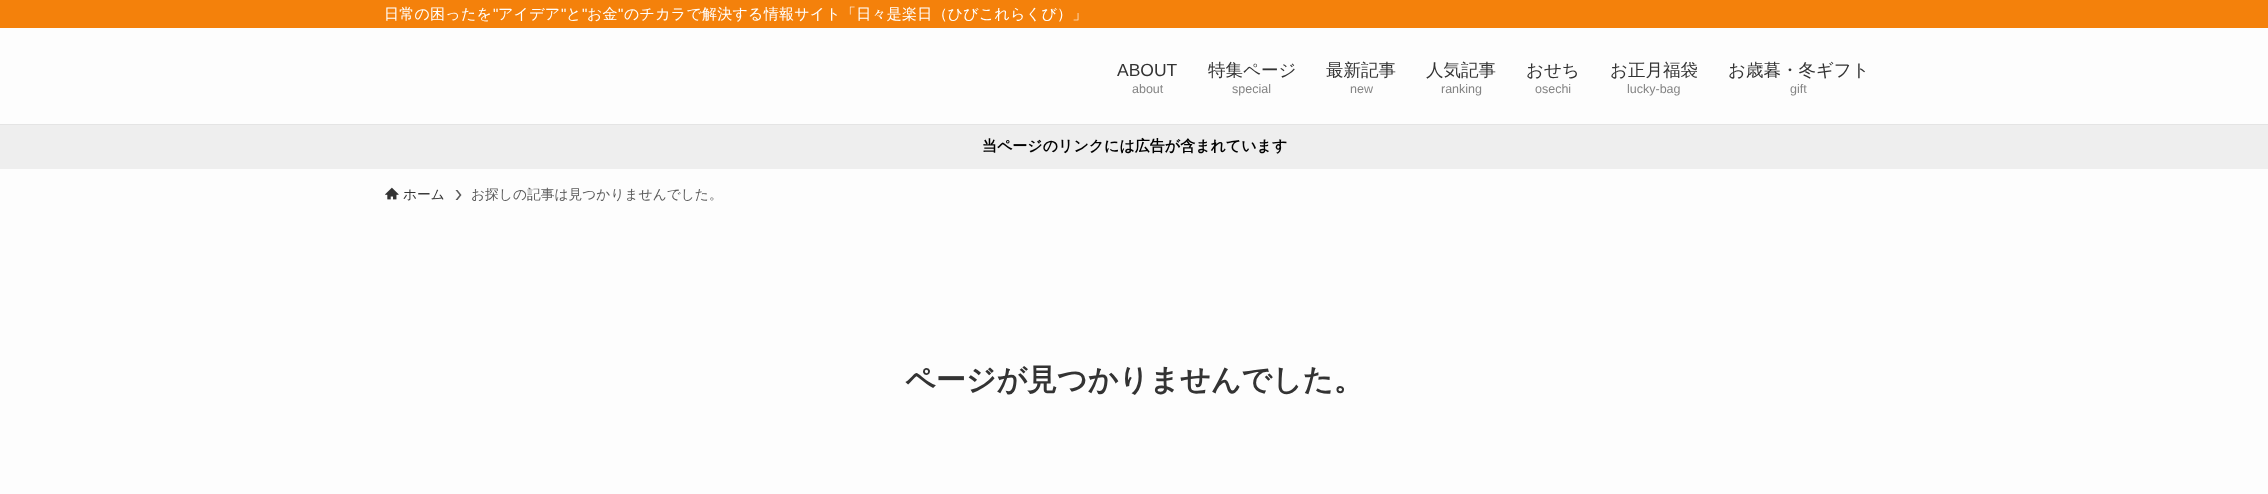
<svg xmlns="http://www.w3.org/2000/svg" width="2268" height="494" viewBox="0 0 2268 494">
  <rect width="100%" height="100%" fill="#fdfdfd"/>
  <rect x="0" y="124" width="2268" height="1" fill="#e4e4e4"/>
  <rect x="0" y="0" width="2268" height="28" fill="#f4810b"/>
  <text x="384" y="19" font-family="WenQuanYi Zen Hei" font-size="15" font-weight="500" letter-spacing="0.25" fill="#ffffff">日常の困ったを</text>
  <text x="493" y="19" font-family="Liberation Sans" font-size="15" letter-spacing="0.25" fill="#ffffff">"</text>
  <text x="498" y="19" font-family="WenQuanYi Zen Hei" font-size="15" font-weight="500" letter-spacing="0.25" fill="#ffffff">アイデア</text>
  <text x="561" y="19" font-family="Liberation Sans" font-size="15" letter-spacing="0.25" fill="#ffffff">"</text>
  <text x="566" y="19" font-family="WenQuanYi Zen Hei" font-size="15" font-weight="500" letter-spacing="0.25" fill="#ffffff">と</text>
  <text x="582" y="19" font-family="Liberation Sans" font-size="15" letter-spacing="0.25" fill="#ffffff">"</text>
  <text x="587" y="19" font-family="WenQuanYi Zen Hei" font-size="15" font-weight="500" letter-spacing="0.25" fill="#ffffff">お金</text>
  <text x="618" y="19" font-family="Liberation Sans" font-size="15" letter-spacing="0.25" fill="#ffffff">"</text>
  <text x="624" y="19" font-family="WenQuanYi Zen Hei" font-size="15" font-weight="500" letter-spacing="0.25" fill="#ffffff">のチカラで解決する情報サイト「日々是楽日（ひびこれらくび）」</text>
  <text x="1117" y="76" font-family="Liberation Sans" font-size="17.5" fill="#333333">ABOUT</text>
  <text x="1132" y="93" font-family="Liberation Sans" font-size="12.5" fill="#848484">about</text>
  <text x="1208" y="76" font-family="WenQuanYi Zen Hei" font-size="17.5" font-weight="500" fill="#333333">特集ページ</text>
  <text x="1232" y="93" font-family="Liberation Sans" font-size="12.5" fill="#848484">special</text>
  <text x="1326" y="76" font-family="WenQuanYi Zen Hei" font-size="17.5" font-weight="500" fill="#333333">最新記事</text>
  <text x="1350" y="93" font-family="Liberation Sans" font-size="12.5" fill="#848484">new</text>
  <text x="1426" y="76" font-family="WenQuanYi Zen Hei" font-size="17.5" font-weight="500" fill="#333333">人気記事</text>
  <text x="1441" y="93" font-family="Liberation Sans" font-size="12.5" fill="#848484">ranking</text>
  <text x="1526" y="76" font-family="WenQuanYi Zen Hei" font-size="17.5" font-weight="500" fill="#333333">おせち</text>
  <text x="1535" y="93" font-family="Liberation Sans" font-size="12.5" fill="#848484">osechi</text>
  <text x="1610" y="76" font-family="WenQuanYi Zen Hei" font-size="17.5" font-weight="500" fill="#333333">お正月福袋</text>
  <text x="1627" y="93" font-family="Liberation Sans" font-size="12.5" fill="#848484">lucky-bag</text>
  <text x="1728" y="76" font-family="WenQuanYi Zen Hei" font-size="17.5" font-weight="500" fill="#333333">お歳暮・冬ギフト</text>
  <text x="1790" y="93" font-family="Liberation Sans" font-size="12.5" fill="#848484">gift</text>
  <rect x="0" y="125" width="2268" height="44" fill="#eeeeee"/>
  <text x="982" y="151" font-family="WenQuanYi Zen Hei" font-size="15" font-weight="bold" fill="#000000">当ページのリンクには広告が含まれています</text>
  <image x="385" y="187" width="14" height="13" href="img1.png"/>
  <text x="403" y="199" font-family="WenQuanYi Zen Hei" font-size="13.75" font-weight="500" fill="#333333">ホーム</text>
  <path d="M457.5 190H455.5L459.5 195L455.5 200H457.5L461.5 195Z" fill="#5b5b5b"/>
  <text x="471" y="199" font-family="WenQuanYi Zen Hei" font-size="13.75" font-weight="500" fill="#5b5b5b">お探しの記事は見つかりませんでした。</text>
  <text x="905" y="390" font-family="WenQuanYi Zen Hei" font-size="30" font-weight="bold" fill="#333333">ページが見つかりませんでした。</text>
</svg>
